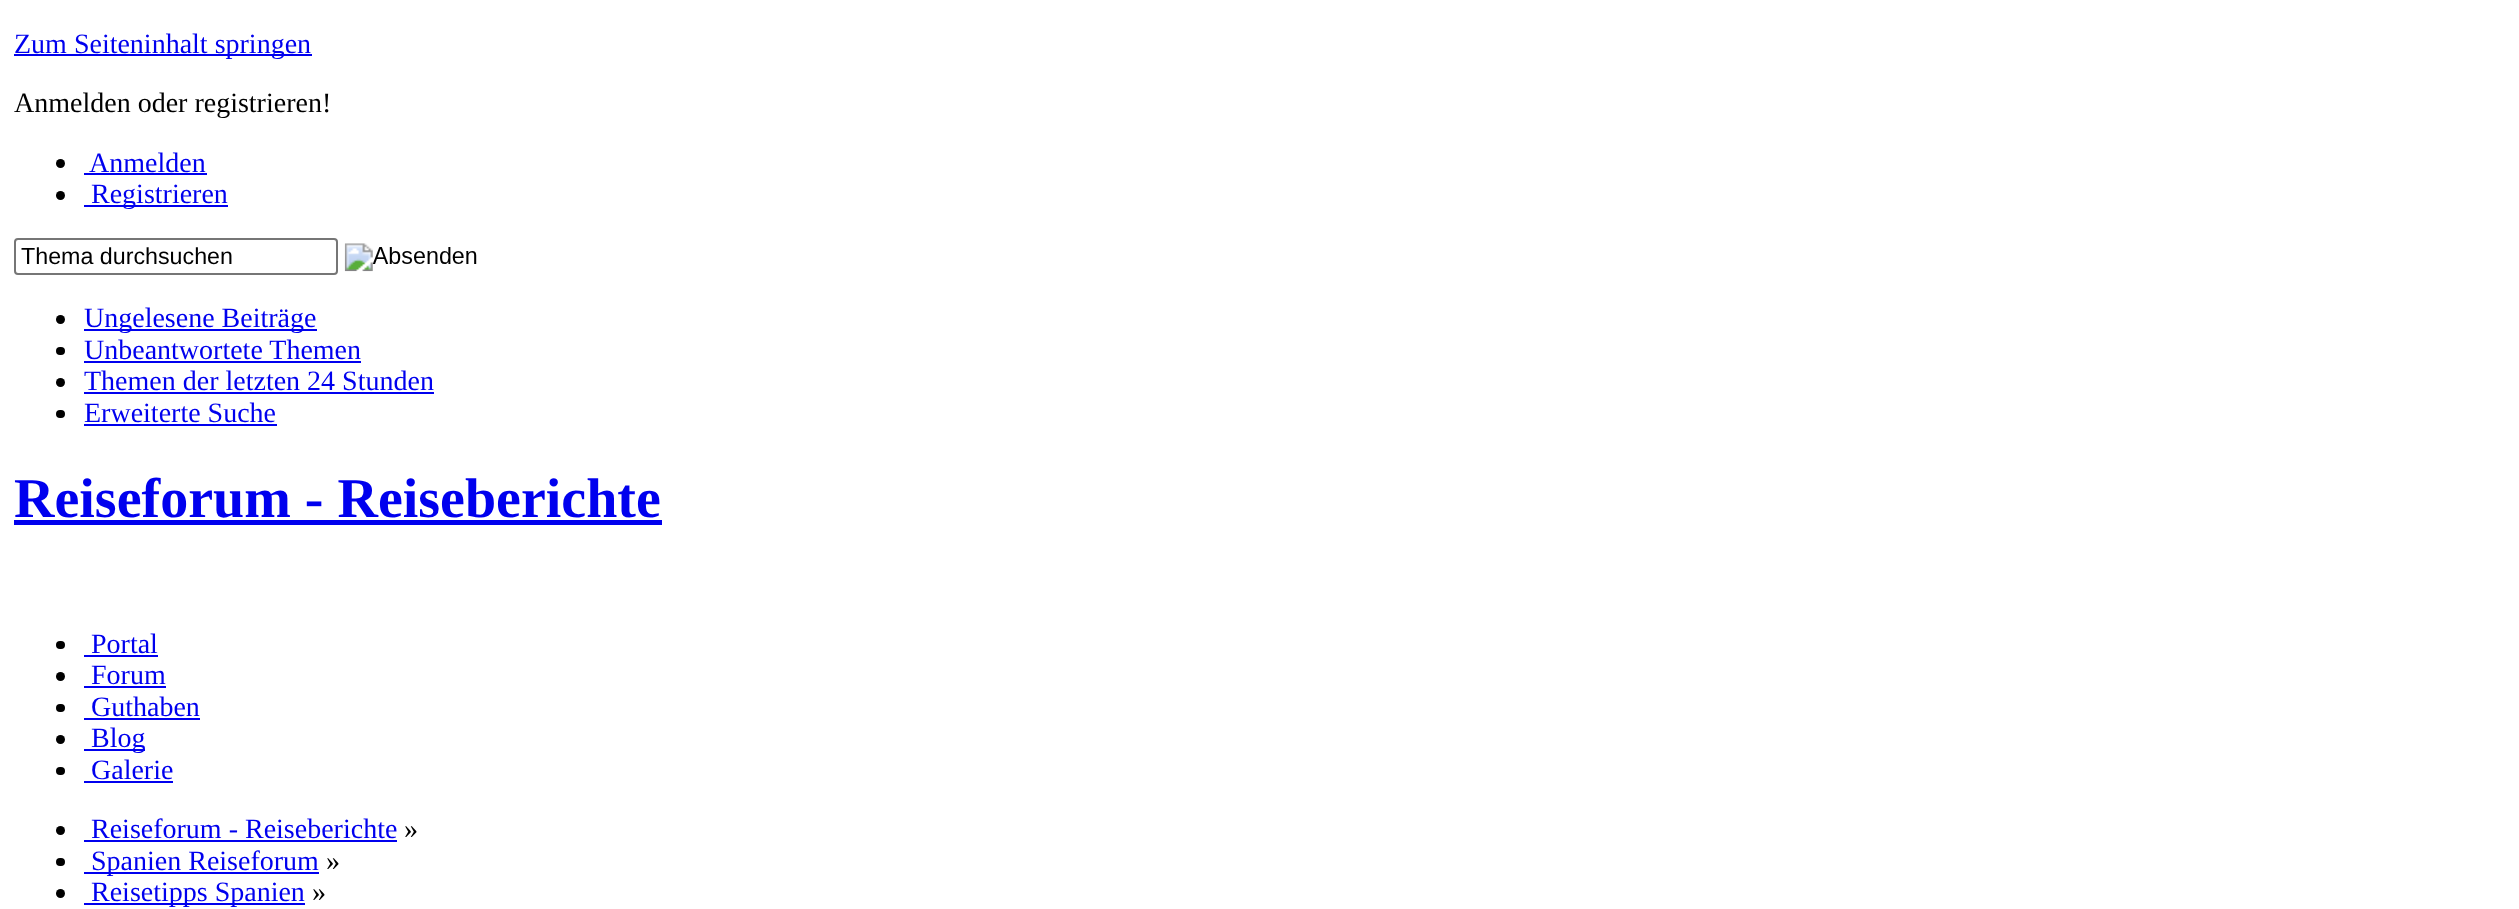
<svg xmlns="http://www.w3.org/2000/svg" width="2519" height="909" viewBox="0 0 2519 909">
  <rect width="100%" height="100%" fill="#ffffff"/>
  <rect x="14" y="54" width="298" height="2" fill="#0000ee"/>
  <text x="14" y="53" font-family="Liberation Serif" font-size="28" fill="#0000ee">Zum Seiteninhalt springen</text>
  <text x="14" y="112" font-family="Liberation Serif" font-size="28" fill="#000000">Anmelden oder registrieren!</text>
  <circle cx="60.5" cy="163.5" r="4.5" fill="#000000"/>
  <text x="89" y="172" font-family="Liberation Serif" font-size="28" fill="#0000ee">Anmelden</text>
  <rect x="84" y="173" width="123" height="2" fill="#0000ee"/>
  <circle cx="60.5" cy="195.5" r="4.5" fill="#000000"/>
  <rect x="84" y="205" width="144" height="2" fill="#0000ee"/>
  <text x="91" y="203" font-family="Liberation Serif" font-size="28" fill="#0000ee">Registrieren</text>
  <rect x="15" y="239" width="322" height="35" rx="3" fill="none" stroke="#767676" stroke-width="2"/>
  <text x="21" y="264" font-family="Liberation Sans" font-size="23.25" fill="#000000">Thema durchsuchen</text>
  <image x="344" y="243" width="133" height="29" href="img1.png"/>
  <circle cx="60.5" cy="319.5" r="4.5" fill="#000000"/>
  <rect x="84" y="329" width="233" height="2" fill="#0000ee"/>
  <text x="84" y="327" font-family="Liberation Serif" font-size="28" fill="#0000ee">Ungelesene Beiträge</text>
  <rect x="56" y="347" width="9" height="8" rx="4" fill="#000000"/>
  <text x="84" y="359" font-family="Liberation Serif" font-size="28" fill="#0000ee">Unbeantwortete Themen</text>
  <rect x="84" y="361" width="277" height="2" fill="#0000ee"/>
  <circle cx="60.5" cy="382.5" r="4.5" fill="#000000"/>
  <text x="84" y="390" font-family="Liberation Serif" font-size="28" fill="#0000ee">Themen der letzten 24 Stunden</text>
  <rect x="84" y="392" width="350" height="2" fill="#0000ee"/>
  <rect x="56" y="410" width="9" height="8" rx="4" fill="#000000"/>
  <text x="84" y="422" font-family="Liberation Serif" font-size="28" fill="#0000ee">Erweiterte Suche</text>
  <rect x="84" y="424" width="193" height="2" fill="#0000ee"/>
  <text x="14" y="517" font-family="Liberation Serif" font-size="56" font-weight="bold" fill="#0000ee">Reiseforum - Reiseberichte</text>
  <rect x="14" y="520" width="648" height="5" fill="#0000ee"/>
  <rect x="56" y="641" width="9" height="8" rx="4" fill="#000000"/>
  <text x="91" y="653" font-family="Liberation Serif" font-size="28" fill="#0000ee">Portal</text>
  <rect x="84" y="655" width="74" height="2" fill="#0000ee"/>
  <circle cx="60.5" cy="676.5" r="4.5" fill="#000000"/>
  <text x="91" y="684" font-family="Liberation Serif" font-size="28" fill="#0000ee">Forum</text>
  <rect x="84" y="686" width="82" height="2" fill="#0000ee"/>
  <rect x="56" y="704" width="9" height="8" rx="4" fill="#000000"/>
  <text x="91" y="716" font-family="Liberation Serif" font-size="28" fill="#0000ee">Guthaben</text>
  <rect x="84" y="718" width="116" height="2" fill="#0000ee"/>
  <circle cx="60.5" cy="739.5" r="4.5" fill="#000000"/>
  <rect x="84" y="749" width="61" height="2" fill="#0000ee"/>
  <text x="91" y="747" font-family="Liberation Serif" font-size="28" fill="#0000ee">Blog</text>
  <rect x="56" y="767" width="9" height="8" rx="4" fill="#000000"/>
  <text x="91" y="779" font-family="Liberation Serif" font-size="28" fill="#0000ee">Galerie</text>
  <rect x="84" y="781" width="89" height="2" fill="#0000ee"/>
  <circle cx="60.5" cy="830.5" r="4.5" fill="#000000"/>
  <text x="91" y="838" font-family="Liberation Serif" font-size="28" fill="#0000ee">Reiseforum - Reiseberichte</text>
  <rect x="84" y="840" width="313" height="2" fill="#0000ee"/>
  <text x="404" y="838" font-family="Liberation Serif" font-size="28" fill="#000000">»</text>
  <rect x="56" y="858" width="9" height="8" rx="4" fill="#000000"/>
  <rect x="84" y="872" width="235" height="2" fill="#0000ee"/>
  <text x="91" y="870" font-family="Liberation Serif" font-size="28" fill="#0000ee">Spanien Reiseforum</text>
  <text x="326" y="870" font-family="Liberation Serif" font-size="28" fill="#000000">»</text>
  <circle cx="60.5" cy="893.5" r="4.5" fill="#000000"/>
  <rect x="84" y="903" width="221" height="2" fill="#0000ee"/>
  <text x="91" y="901" font-family="Liberation Serif" font-size="28" fill="#0000ee">Reisetipps Spanien</text>
  <text x="312" y="901" font-family="Liberation Serif" font-size="28" fill="#000000">»</text>
</svg>
